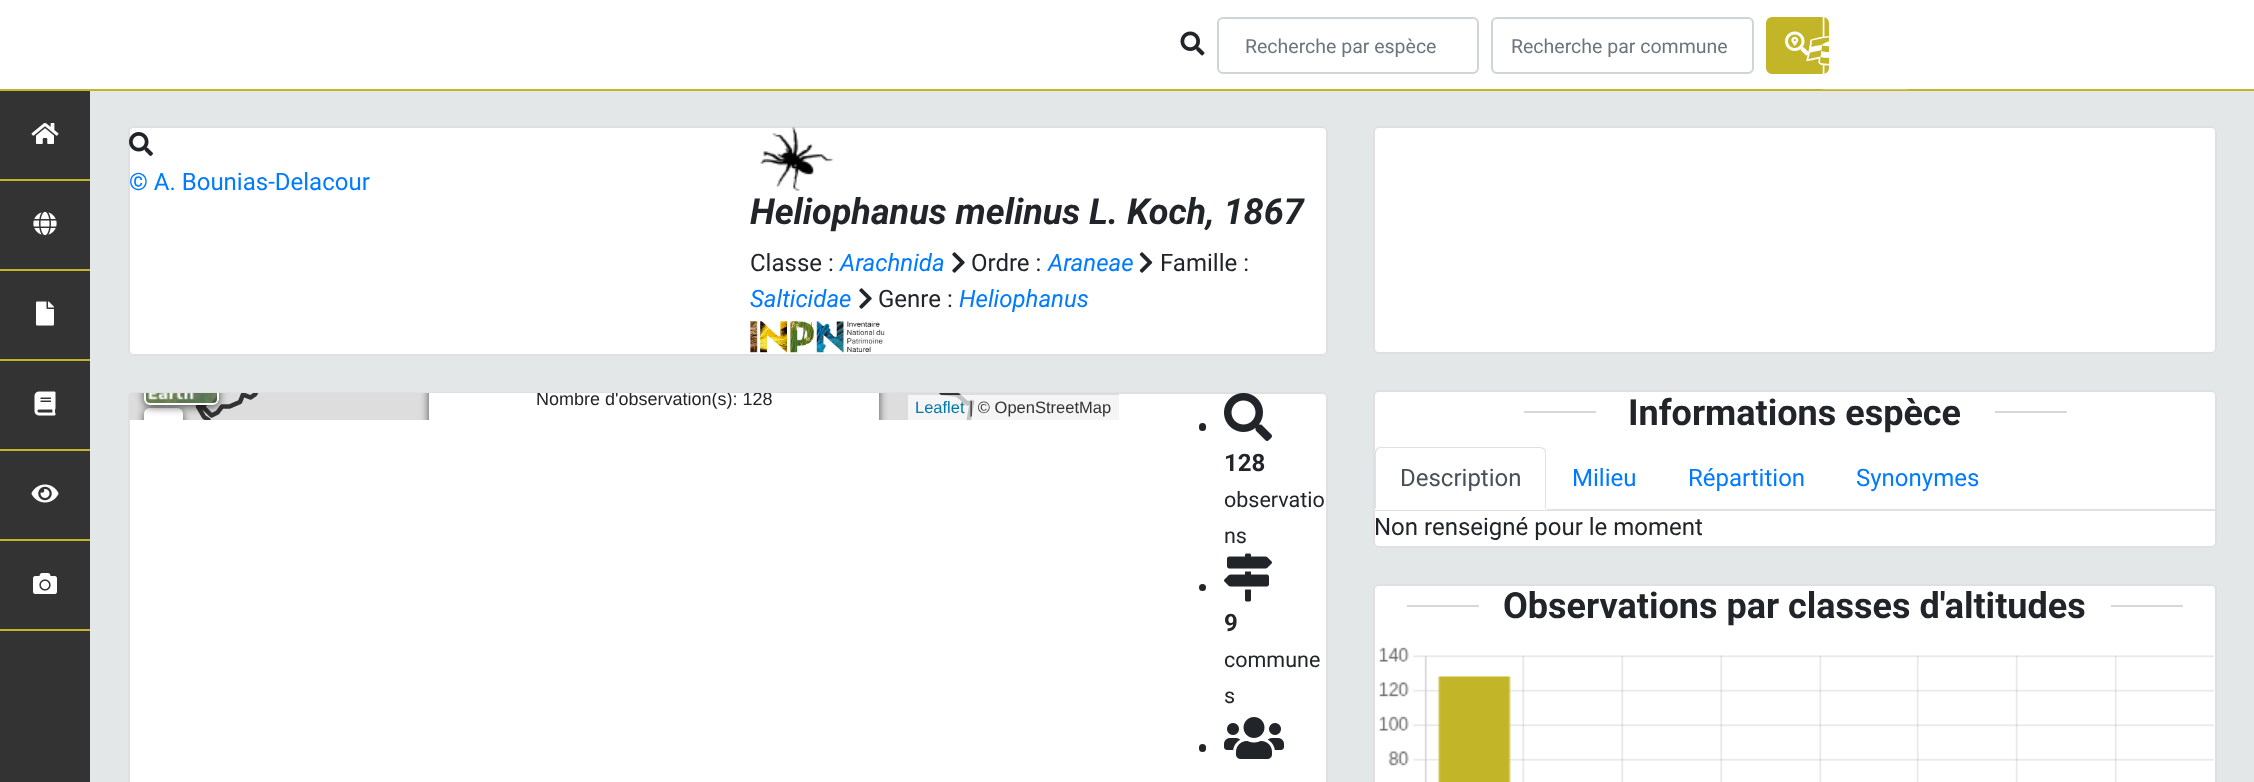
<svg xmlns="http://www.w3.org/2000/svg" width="2254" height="782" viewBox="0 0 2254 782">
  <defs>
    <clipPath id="clip1"><rect x="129" y="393" width="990" height="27"/></clipPath>
    <filter id="blur1" x="-50%" y="-200%" width="200%" height="500%"><feGaussianBlur stdDeviation="4"/></filter>
    <clipPath id="clip2"><rect x="129" y="393" width="990" height="27"/></clipPath>
  </defs>
  <rect width="100%" height="100%" fill="#e3e7e8"/>
  <rect x="0" y="0" width="2254" height="89" fill="#ffffff"/>
  <rect x="0" y="89" width="2254" height="2" fill="#c3b528"/>
  <image x="1180" y="31" width="25" height="25" href="img1.png"/>
  <rect x="1218" y="18" width="260" height="55" rx="5" fill="none" stroke="#ced4da" stroke-width="2"/>
  <text x="1245" y="53" font-family="Roboto" font-size="19.5" fill="#6c757d">Recherche par espèce</text>
  <rect x="1492" y="18" width="261" height="55" rx="5" fill="none" stroke="#ced4da" stroke-width="2"/>
  <text x="1511" y="53" font-family="Roboto" font-size="19.5" fill="#6c757d">Recherche par commune</text>
  <rect x="1767" y="18" width="61" height="55" rx="5" fill="#c3b528" stroke="#c3b528" stroke-width="2"/>
  <image x="1806" y="17" width="102" height="73" href="img3.png"/>
  <image x="1785" y="31" width="24" height="25" href="img2.png"/>
  <rect x="0" y="91" width="90" height="691" fill="#333333"/>
  <rect x="0" y="179" width="90" height="2" fill="#c3b528"/>
  <image x="31" y="123" width="28" height="21" href="img4.png"/>
  <rect x="0" y="269" width="90" height="2" fill="#c3b528"/>
  <image x="33" y="211" width="24" height="25" href="img5.png"/>
  <rect x="0" y="359" width="90" height="2" fill="#c3b528"/>
  <image x="36" y="301" width="18" height="25" href="img6.png"/>
  <rect x="0" y="449" width="90" height="2" fill="#c3b528"/>
  <image x="34" y="391" width="22" height="25" href="img7.png"/>
  <rect x="0" y="539" width="90" height="2" fill="#c3b528"/>
  <image x="31" y="484" width="28" height="19" href="img8.png"/>
  <rect x="0" y="629" width="90" height="2" fill="#c3b528"/>
  <image x="33" y="573" width="24" height="21" href="img9.png"/>
  <rect x="128" y="126" width="1200" height="230" rx="6" fill="#ffffff"/>
  <rect x="129" y="127" width="1198" height="228" rx="5" fill="none" stroke="#000000" stroke-opacity="0.12" stroke-width="2"/>
  <image x="129" y="132" width="24" height="24" href="img10.png"/>
  <text x="129" y="190" font-family="Roboto" font-size="24" fill="#007bff">© A. Bounias-Delacour</text>
  <image x="760" y="127" width="73" height="64" href="img11.png"/>
  <text x="750" y="224" font-family="Roboto" font-size="36" font-weight="bold" font-style="italic" fill="#212529">Heliophanus melinus L. Koch, 1867</text>
  <text x="750" y="271" font-family="Roboto" font-size="24" fill="#212529">Classe :</text>
  <text x="840" y="271" font-family="Roboto" font-size="24" font-style="italic" fill="#007bff">Arachnida</text>
  <image x="952" y="252" width="13" height="21" href="img12.png"/>
  <text x="971" y="271" font-family="Roboto" font-size="24" fill="#212529">Ordre :</text>
  <text x="1048" y="271" font-family="Roboto" font-size="24" font-style="italic" fill="#007bff">Araneae</text>
  <image x="1139" y="252" width="14" height="21" href="img13.png"/>
  <text x="1160" y="271" font-family="Roboto" font-size="24" fill="#212529">Famille :</text>
  <text x="750" y="307" font-family="Roboto" font-size="24" font-style="italic" fill="#007bff">Salticidae</text>
  <image x="859" y="288" width="13" height="21" href="img12.png"/>
  <text x="878" y="307" font-family="Roboto" font-size="24" fill="#212529">Genre :</text>
  <text x="959" y="307" font-family="Roboto" font-size="24" font-style="italic" fill="#007bff">Heliophanus</text>
  <image x="750" y="321" width="135" height="32" href="img14.png"/>
  <rect x="128" y="392" width="1200" height="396" rx="6" fill="#ffffff"/>
  <rect x="129" y="393" width="1198" height="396" rx="5" fill="none" stroke="#000000" stroke-opacity="0.12" stroke-width="2"/>
  <rect x="129" y="393" width="990" height="27" fill="#dddddd"/>
  <image x="195" y="393" width="780" height="27" href="img15.png"/>
  <g clip-path="url(#clip1)">
    <rect x="144" y="410" width="39" height="39" rx="6" fill="#000000" fill-opacity="0.65" filter="url(#blur1)"/>
  </g>
  <path d="M150 408H177C180.5 408 183 410.5 183 414V420H144V414C144 410.5 146.5 408 150 408Z" fill="#ffffff"/>
  <g clip-path="url(#clip1)">
    <rect x="144" y="332" width="75" height="75" rx="6" fill="#000000" fill-opacity="0.65" filter="url(#blur1)"/>
  </g>
  <image x="144" y="393" width="75" height="12" href="img16.png"/>
  <g clip-path="url(#clip2)">
    <rect x="145" y="331" width="73" height="73" rx="5" fill="none" stroke="#ffffff" stroke-width="2"/>
  </g>
  <g clip-path="url(#clip1)">
    <rect x="429" y="332" width="450" height="105" rx="6" fill="#000000" fill-opacity="0.65" filter="url(#blur1)"/>
  </g>
  <rect x="429" y="393" width="450" height="27" fill="#ffffff"/>
  <g clip-path="url(#clip2)">
    <text x="536" y="405" font-family="Liberation Sans" font-size="18" fill="#212529">Nombre d'observation(s): 128</text>
  </g>
  <rect x="908" y="395" width="211" height="25" fill="#ffffff" fill-opacity="0.7"/>
  <text x="915" y="413" font-family="Liberation Sans" font-size="16.5" fill="#0078a8">Leaflet</text>
  <text x="969" y="413" font-family="Liberation Sans" font-size="16.5" fill="#333333">| © OpenStreetMap</text>
  <rect x="1199" y="423" width="7" height="8" rx="3.5" fill="#212529"/>
  <image x="1224" y="393" width="48" height="48" href="img17.png"/>
  <text x="1224" y="471" font-family="Roboto" font-size="24" font-weight="bold" fill="#212529">128</text>
  <text x="1224" y="507" font-family="Roboto" font-size="21.5" fill="#212529">observatio</text>
  <text x="1224" y="543" font-family="Roboto" font-size="21.5" fill="#212529">ns</text>
  <circle cx="1202.5" cy="587.5" r="3.5" fill="#212529"/>
  <image x="1224" y="553" width="48" height="49" href="img18.png"/>
  <text x="1224" y="631" font-family="Roboto" font-size="24" font-weight="bold" fill="#212529">9</text>
  <text x="1224" y="667" font-family="Roboto" font-size="21.5" fill="#212529">commune</text>
  <text x="1224" y="703" font-family="Roboto" font-size="21.5" fill="#212529">s</text>
  <rect x="1199" y="744" width="7" height="8" rx="3.5" fill="#212529"/>
  <image x="1224" y="717" width="60" height="42" href="img19.png"/>
  <rect x="1373" y="126" width="844" height="228" rx="6" fill="#ffffff"/>
  <rect x="1374" y="127" width="842" height="226" rx="5" fill="none" stroke="#000000" stroke-opacity="0.12" stroke-width="2"/>
  <rect x="1373" y="390" width="844" height="158" rx="6" fill="#ffffff"/>
  <rect x="1374" y="391" width="842" height="156" rx="5" fill="none" stroke="#000000" stroke-opacity="0.12" stroke-width="2"/>
  <rect x="1524" y="411" width="72" height="2" fill="#d7d7d7"/>
  <text x="1628" y="425" font-family="Roboto" font-size="36" font-weight="bold" fill="#212529">Informations espèce</text>
  <rect x="1995" y="411" width="72" height="2" fill="#d7d7d7"/>
  <rect x="1374" y="509" width="842" height="2" fill="#dee2e6"/>
  <path d="M1380 447H1541C1544.5 447 1547 449.5 1547 453V510H1374V453C1374 449.5 1376.5 447 1380 447Z" fill="#ffffff"/>
  <path d="M1380 447C1378 447 1377 448 1376 449L1377 450C1378 449 1379 448 1380 448H1540C1542 448 1543 449 1544 450L1545 449C1544 448 1542 447 1540 447Z" fill="#dee2e6"/>
  <path d="M1545 449C1546 450 1546 452 1546 453V510L1544 508H1545V453C1545 452 1545 451 1544 450Z" fill="#dee2e6"/>
  <path d="M1546 510L1544 508H1376L1374 510Z" fill="#ffffff"/>
  <path d="M1374 510L1376 508V453L1377 450L1376 449C1375 450 1374 452 1374 453Z" fill="#dee2e6"/>
  <text x="1400" y="486" font-family="Roboto" font-size="24" fill="#495057">Description</text>
  <text x="1572" y="486" font-family="Roboto" font-size="24" fill="#007bff">Milieu</text>
  <text x="1688" y="486" font-family="Roboto" font-size="24" fill="#007bff">Répartition</text>
  <text x="1856" y="486" font-family="Roboto" font-size="24" fill="#007bff">Synonymes</text>
  <text x="1374" y="535" font-family="Roboto" font-size="24" fill="#212529">Non renseigné pour le moment</text>
  <rect x="1373" y="584" width="844" height="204" rx="6" fill="#ffffff"/>
  <rect x="1374" y="585" width="842" height="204" rx="5" fill="none" stroke="#000000" stroke-opacity="0.12" stroke-width="2"/>
  <rect x="1407" y="605" width="72" height="2" fill="#d7d7d7"/>
  <text x="1503" y="618" font-family="Roboto" font-size="36" font-weight="bold" fill="#212529">Observations par classes d'altitudes</text>
  <rect x="2111" y="605" width="72" height="2" fill="#d7d7d7"/>
  <image x="1378" y="647" width="836" height="135" href="img20.png"/>
</svg>
